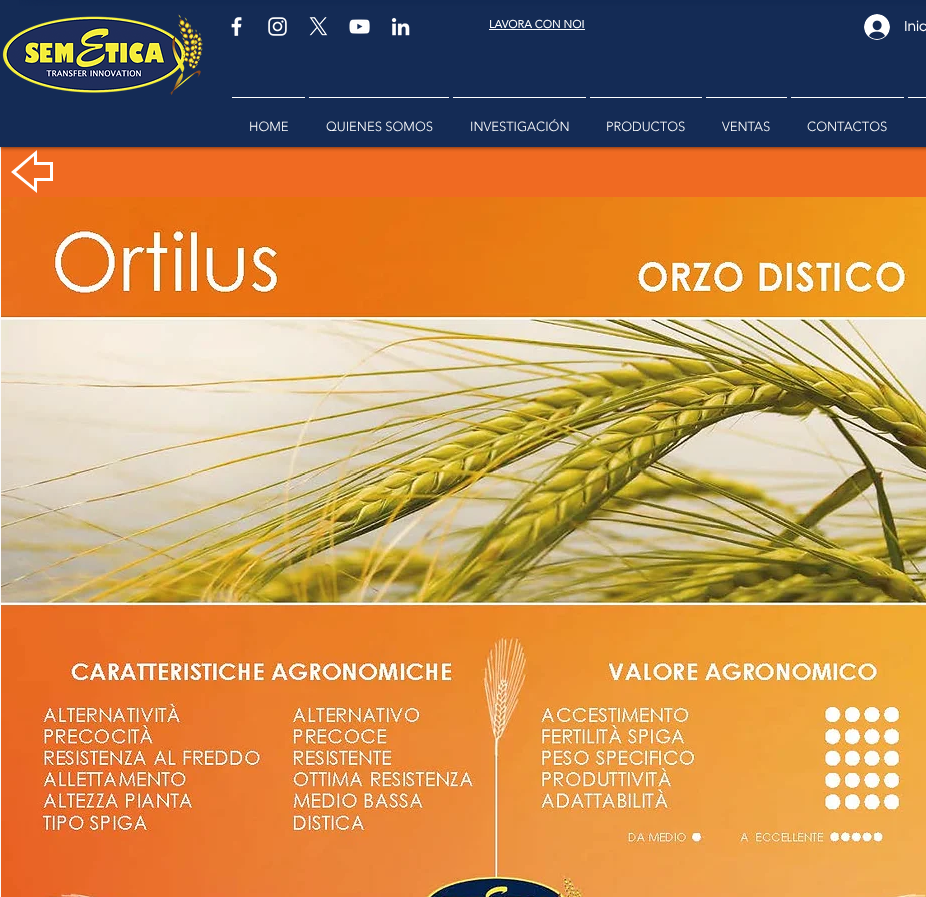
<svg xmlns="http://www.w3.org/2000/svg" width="926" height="897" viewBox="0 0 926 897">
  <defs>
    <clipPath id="clip1"><rect x="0" y="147" width="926" height="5"/></clipPath>
    <filter id="blur1" x="-50%" y="-200%" width="200%" height="500%"><feGaussianBlur stdDeviation="2.5"/></filter>
  </defs>
  <rect width="100%" height="100%" fill="#142b55"/>
  <image x="19" y="0" width="81" height="6" href="img1.png"/>
  <image x="100" y="0" width="780" height="6" href="img2.png"/>
  <image x="880" y="0" width="46" height="6" href="img3.png"/>
  <rect x="0" y="147" width="1" height="750" fill="#fafafa"/>
  <rect x="1" y="147" width="925" height="50" fill="#f06a22"/>
  <path d="M37 150V162H53V181H37V193L11 172ZM50 165H34V156L16 172L34 187V178H50Z" fill="#ffffff"/>
  <g clip-path="url(#clip1)">
    <rect x="0" y="0" width="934" height="147" fill="#000000" fill-opacity="0.7" filter="url(#blur1)"/>
  </g>
  <image x="2" y="14" width="201" height="81" href="img4.png"/>
  <image x="231" y="17" width="11" height="19" href="img5.png"/>
  <image x="268" y="17" width="19" height="19" href="img6.png"/>
  <image x="309" y="17" width="19" height="19" href="img7.png"/>
  <image x="349" y="19" width="21" height="15" href="img8.png"/>
  <image x="391" y="17" width="19" height="19" href="img9.png"/>
  <text x="489" y="28" font-family="'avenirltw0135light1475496'" font-size="11" font-weight="bold" letter-spacing="0.1" fill="#ffffff">LAVORA CON NOI</text>
  <rect x="489" y="29" width="96" height="1" fill="#ffffff"/>
  <image x="864" y="14" width="26" height="26" href="img10.png"/>
  <text x="904" y="31" font-family="Questrial" font-size="15" fill="#ffffff">Inic</text>
  <rect x="908" y="97" width="18" height="1" fill="#ffffff"/>
  <rect x="232" y="97" width="73" height="1" fill="#ffffff"/>
  <text x="249" y="131" font-family="'avenirltw0135light1475496'" font-size="13" font-weight="300" fill="#ffffff">HOME</text>
  <rect x="309" y="97" width="140" height="1" fill="#ffffff"/>
  <text x="326" y="131" font-family="'avenirltw0135light1475496'" font-size="13" font-weight="300" fill="#ffffff">QUIENES SOMOS</text>
  <rect x="453" y="97" width="133" height="1" fill="#ffffff"/>
  <text x="470" y="131" font-family="'avenirltw0135light1475496'" font-size="13" font-weight="300" fill="#ffffff">INVESTIGACIÓN</text>
  <rect x="590" y="97" width="112" height="1" fill="#ffffff"/>
  <text x="606" y="131" font-family="'avenirltw0135light1475496'" font-size="13" font-weight="300" fill="#ffffff">PRODUCTOS</text>
  <rect x="706" y="97" width="81" height="1" fill="#ffffff"/>
  <text x="722" y="131" font-family="'avenirltw0135light1475496'" font-size="13" font-weight="300" fill="#ffffff">VENTAS</text>
  <rect x="791" y="97" width="113" height="1" fill="#ffffff"/>
  <text x="807" y="131" font-family="'avenirltw0135light1475496'" font-size="13" font-weight="300" fill="#ffffff">CONTACTOS</text>
  <image x="1" y="197" width="925" height="700" href="img11.png"/>
</svg>
